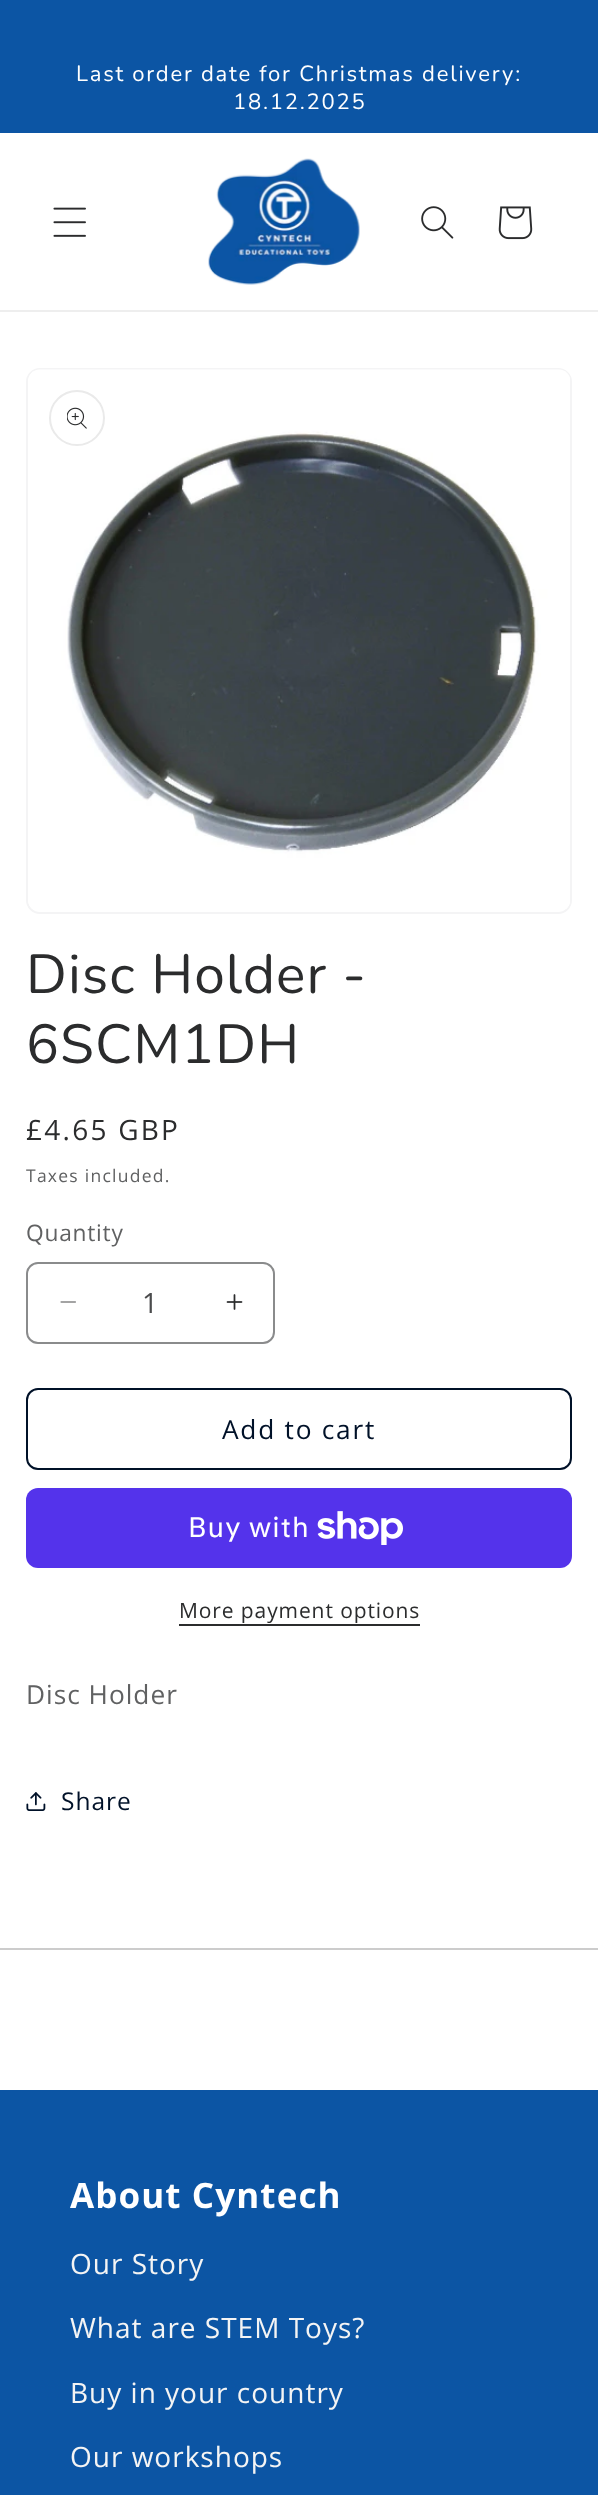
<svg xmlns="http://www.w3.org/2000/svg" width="598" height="2495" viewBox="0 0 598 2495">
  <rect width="100%" height="100%" fill="#ffffff"/>
  <rect x="0" y="0" width="598" height="133" fill="#0c55a4"/>
  <text x="76" y="81" font-family="Nunito" font-size="22.05" letter-spacing="1.75" fill="#ffffff">Last order date for Christmas delivery:</text>
  <text x="233" y="109" font-family="Nunito" font-size="22.05" letter-spacing="1.75" fill="#ffffff">18.12.2025</text>
  <rect x="0" y="310" width="598" height="2" fill="#eeeeee"/>
  <image x="53" y="207" width="33" height="30" href="img1.png"/>
  <image x="208" y="158" width="152" height="127" href="img2.png"/>
  <image x="421" y="206" width="33" height="33" href="img3.png"/>
  <image x="498" y="206" width="35" height="34" href="img4.png"/>
  <rect x="27" y="369" width="544" height="544" rx="13" fill="none" stroke="#f4f4f5" stroke-width="2"/>
  <image x="28" y="369" width="542" height="540" href="img5.png"/>
  <circle cx="77" cy="418" r="27" fill="none" stroke="#eaeaea" stroke-width="2"/>
  <image x="67" y="407" width="20" height="22" href="img6.png"/>
  <text x="26" y="993" font-family="Nunito" font-size="55" letter-spacing="1.1" fill="#2b2c2d">Disc Holder -</text>
  <text x="26" y="1063" font-family="Nunito" font-size="55" letter-spacing="1.1" fill="#2b2c2d">6SCM1DH</text>
  <text x="26" y="1140" font-family="Open Sans" font-size="28" letter-spacing="2.25" fill="#2b2c2d">£4.65 GBP</text>
  <text x="26" y="1182" font-family="Open Sans" font-size="17.5" letter-spacing="1.25" fill="#606162">Taxes included.</text>
  <text x="26" y="1241" font-family="Open Sans" font-size="22.75" letter-spacing="0.75" fill="#606162">Quantity</text>
  <image x="60" y="1301" width="16" height="2" href="img7.png"/>
  <image x="226" y="1294" width="17" height="16" href="img8.png"/>
  <rect x="27" y="1263" width="247" height="80" rx="11" fill="none" stroke="#8a8b8c" stroke-width="2"/>
  <text x="142" y="1313" font-family="Open Sans" font-size="28" fill="#4b4c4d">1</text>
  <rect x="27" y="1389" width="544" height="80" rx="11" fill="none" stroke="#001128" stroke-width="2"/>
  <text x="222" y="1439" font-family="Open Sans" font-size="26.25" letter-spacing="1.75" fill="#001128">Add to cart</text>
  <rect x="26" y="1488" width="546" height="80" rx="12" fill="#5433eb"/>
  <text x="188" y="1537" font-family="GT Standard" font-size="28" letter-spacing="1" fill="#ffffff">Buy with</text>
  <image x="317" y="1511" width="86" height="34" href="img9.png"/>
  <text x="179" y="1618" font-family="Open Sans" font-size="21" letter-spacing="0.9" fill="#2b2c2d">More payment options</text>
  <rect x="179" y="1624" width="241" height="2" fill="#2b2c2d"/>
  <text x="26" y="1704" font-family="Open Sans" font-size="26.25" letter-spacing="1" fill="#606162">Disc Holder</text>
  <image x="26" y="1792" width="20" height="19" href="img10.png"/>
  <text x="61" y="1810" font-family="Open Sans" font-size="24.5" letter-spacing="1" fill="#001128">Share</text>
  <rect x="0" y="1948" width="598" height="2" fill="#cccccc"/>
  <rect x="0" y="2090" width="598" height="405" fill="#0c55a4"/>
  <text x="70" y="2208" font-family="Open Sans" font-size="35" font-weight="bold" letter-spacing="1.1" fill="#ffffff">About Cyntech</text>
  <text x="70" y="2274" font-family="Open Sans" font-size="28" letter-spacing="1" fill="#f4f4f4">Our Story</text>
  <text x="70" y="2338" font-family="Open Sans" font-size="28" letter-spacing="1" fill="#f4f4f4">What are STEM Toys?</text>
  <text x="70" y="2403" font-family="Open Sans" font-size="28" letter-spacing="1" fill="#f4f4f4">Buy in your country</text>
  <text x="70" y="2467" font-family="Open Sans" font-size="28" letter-spacing="1" fill="#f4f4f4">Our workshops</text>
</svg>
